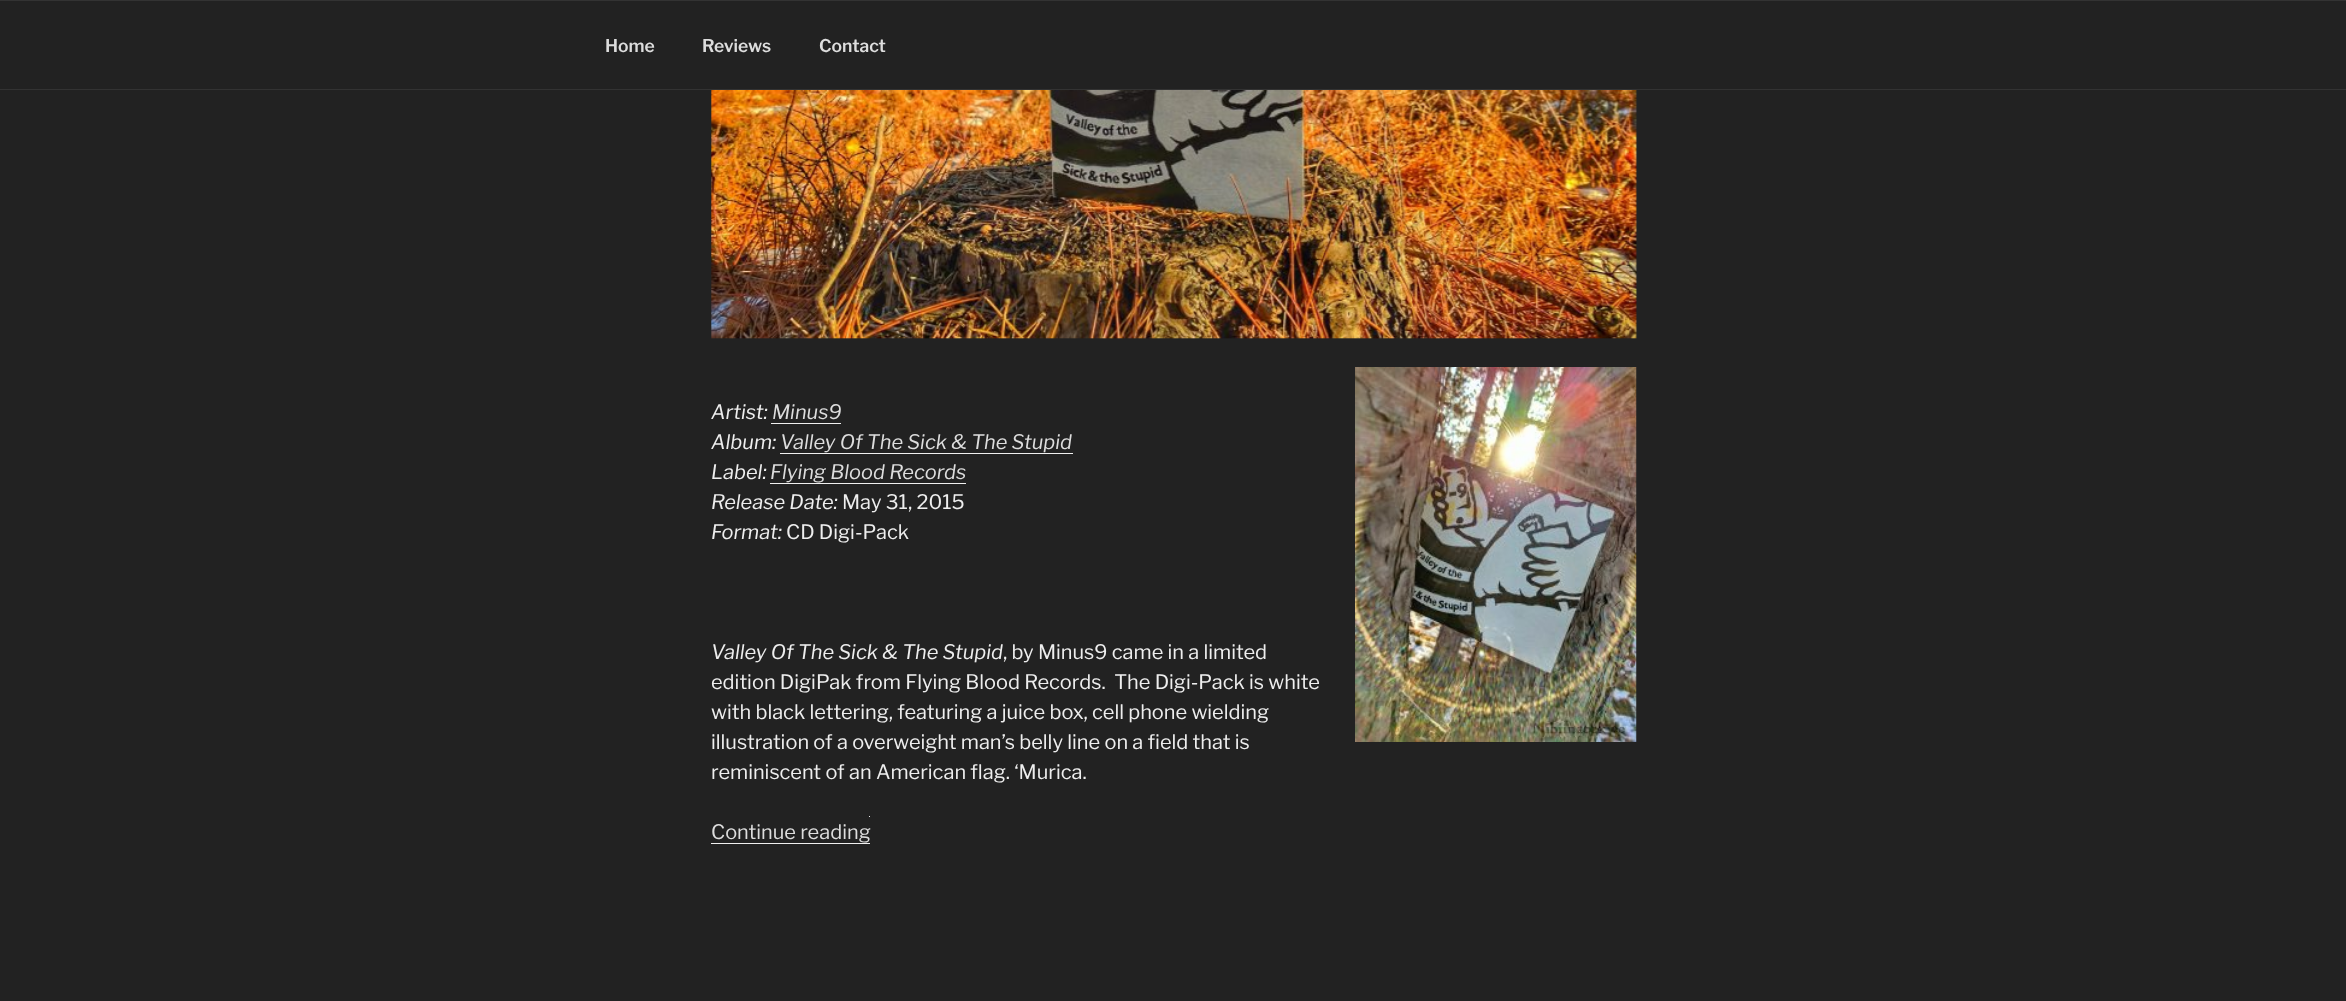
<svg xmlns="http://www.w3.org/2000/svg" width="2346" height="1001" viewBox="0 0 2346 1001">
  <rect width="100%" height="100%" fill="#222222"/>
  <rect x="0" y="0" width="2346" height="1" fill="#333333"/>
  <rect x="0" y="89" width="2346" height="1" fill="#333333"/>
  <text x="605" y="52" font-family="'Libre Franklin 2'" font-size="17.5" font-weight="100" fill="#dddddd">Home</text>
  <text x="702" y="52" font-family="'Libre Franklin 2'" font-size="17.5" font-weight="100" fill="#dddddd">Reviews</text>
  <text x="819" y="52" font-family="'Libre Franklin 2'" font-size="17.5" font-weight="100" fill="#dddddd">Contact</text>
  <image x="711" y="90" width="926" height="249" href="img1.png"/>
  <text x="711" y="419" font-family="Libre Franklin" font-size="20" font-weight="100" font-style="italic" fill="#eeeeee">Artist:</text>
  <text x="772" y="419" font-family="Libre Franklin" font-size="20" font-weight="100" font-style="italic" fill="#dddddd">Minus9</text>
  <rect x="771" y="423" width="70" height="1" fill="#f0f0f0"/>
  <text x="711" y="449" font-family="Libre Franklin" font-size="20" font-weight="100" font-style="italic" fill="#eeeeee">Album:</text>
  <text x="780" y="449" font-family="Libre Franklin" font-size="20" font-weight="100" font-style="italic" fill="#dddddd">Valley Of The Sick &amp; The Stupid</text>
  <rect x="780" y="453" width="293" height="1" fill="#f0f0f0"/>
  <text x="711" y="479" font-family="Libre Franklin" font-size="20" font-weight="100" font-style="italic" fill="#eeeeee">Label:</text>
  <text x="770" y="479" font-family="Libre Franklin" font-size="20" font-weight="100" font-style="italic" fill="#dddddd">Flying Blood Records</text>
  <rect x="770" y="483" width="196" height="1" fill="#f0f0f0"/>
  <text x="711" y="509" font-family="Libre Franklin" font-size="20" font-weight="100" font-style="italic" fill="#eeeeee">Release Date:</text>
  <text x="842" y="509" font-family="Libre Franklin" font-size="20" font-weight="100" fill="#eeeeee">May 31, 2015</text>
  <text x="711" y="539" font-family="Libre Franklin" font-size="20" font-weight="100" font-style="italic" fill="#eeeeee">Format:</text>
  <text x="786" y="539" font-family="Libre Franklin" font-size="20" font-weight="100" fill="#eeeeee">CD Digi-Pack</text>
  <image x="1355" y="367" width="282" height="375" href="img2.png"/>
  <text x="711" y="659" font-family="Libre Franklin" font-size="20" font-weight="100" font-style="italic" fill="#eeeeee">Valley Of The Sick &amp; The Stupid</text>
  <text x="1003" y="659" font-family="Libre Franklin" font-size="20" font-weight="100" fill="#eeeeee">, by Minus9 came in a limited</text>
  <text x="711" y="689" font-family="Libre Franklin" font-size="20" font-weight="100" fill="#eeeeee" xml:space="preserve">edition DigiPak from Flying Blood Records.  The Digi-Pack is white</text>
  <text x="711" y="719" font-family="Libre Franklin" font-size="20" font-weight="100" fill="#eeeeee">with black lettering, featuring a juice box, cell phone wielding</text>
  <text x="711" y="749" font-family="Libre Franklin" font-size="20" font-weight="100" fill="#eeeeee">illustration of a overweight man’s belly line on a field that is</text>
  <text x="711" y="779" font-family="Libre Franklin" font-size="20" font-weight="100" fill="#eeeeee">reminiscent of an American flag. ‘Murica.</text>
  <text x="711" y="839" font-family="Libre Franklin" font-size="20" font-weight="100" fill="#dddddd">Continue reading</text>
  <rect x="711" y="843" width="159" height="1" fill="#f0f0f0"/>
  <rect x="869" y="816" width="1" height="1" fill="#f0f0f0"/>
</svg>
